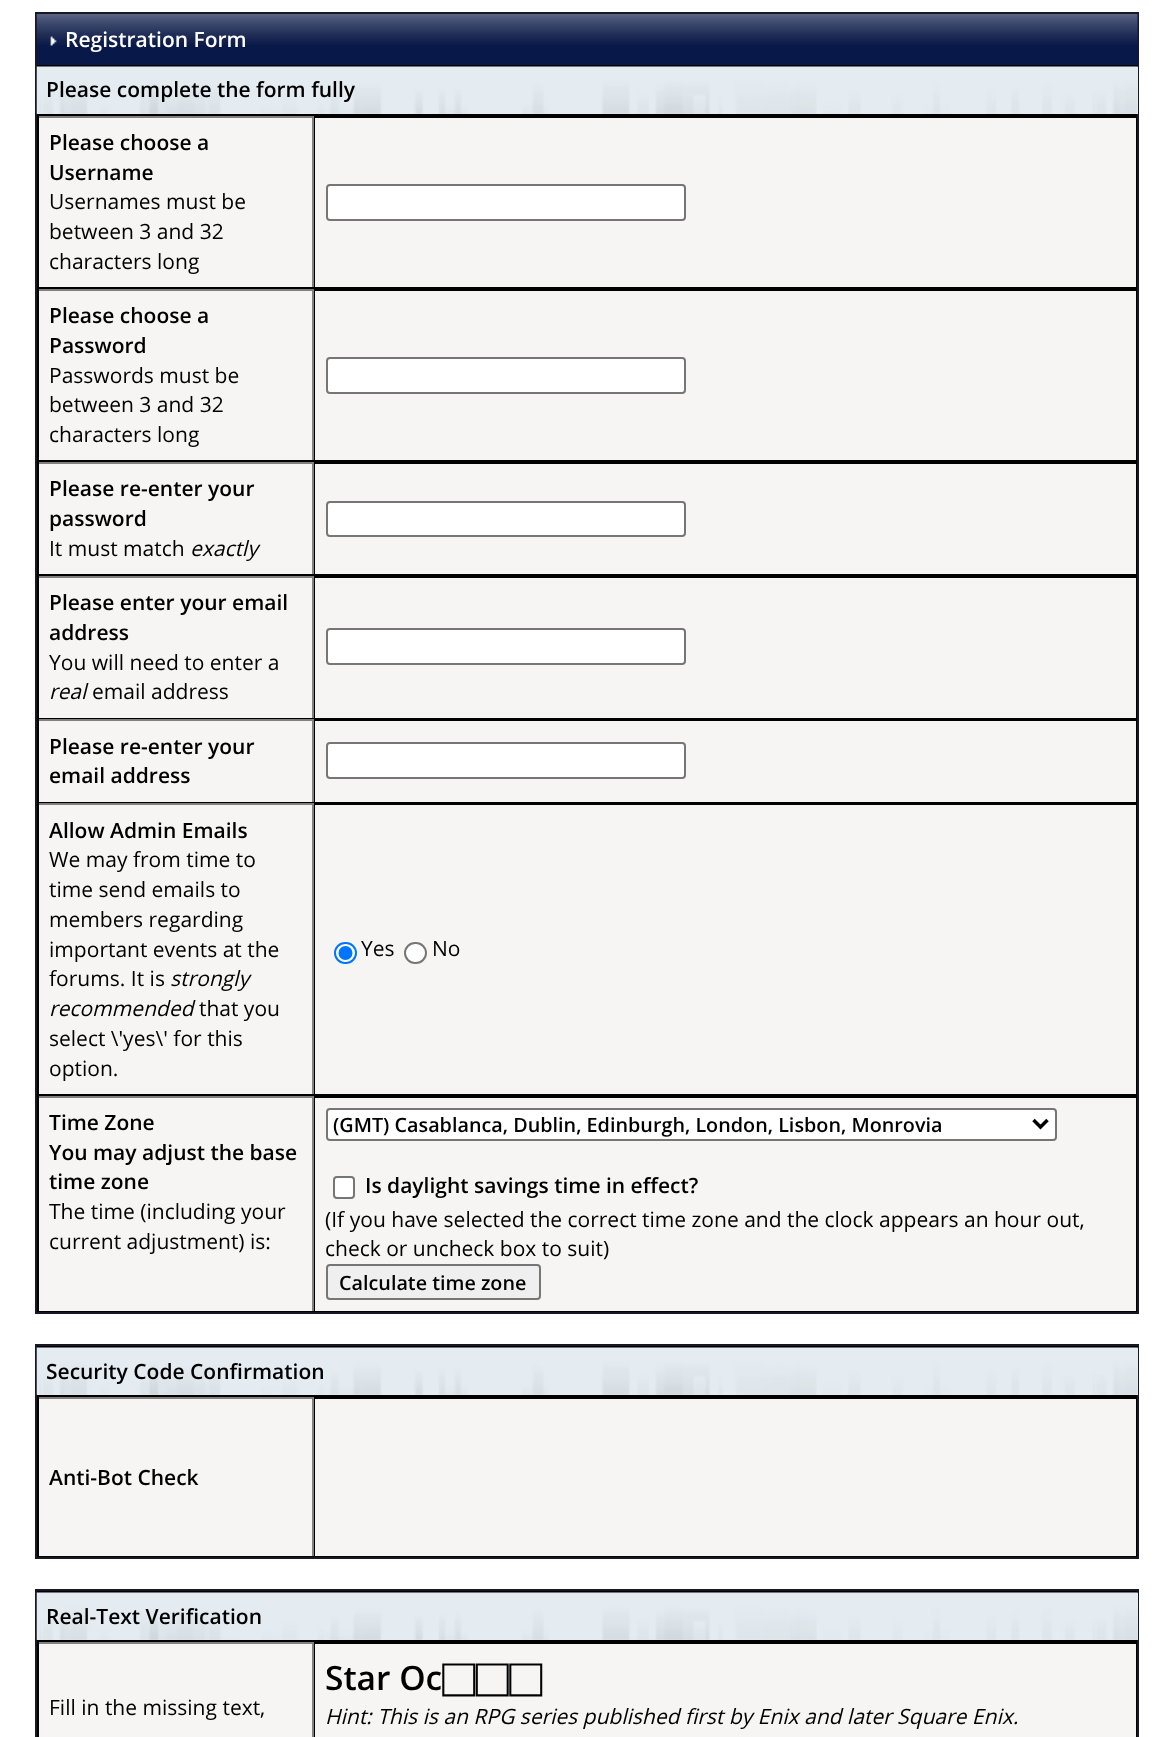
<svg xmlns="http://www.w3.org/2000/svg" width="1174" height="1737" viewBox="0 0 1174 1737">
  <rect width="100%" height="100%" fill="#ffffff"/>
  <rect x="37" y="65" width="1100" height="1247" fill="#000000"/>
  <rect x="36" y="13" width="1102" height="1300" fill="none" stroke="#171726" stroke-width="2"/>
  <rect x="37" y="14" width="1101" height="51" fill="#081848"/>
  <image x="36" y="14" width="1102" height="31" href="img1.png"/>
  <image x="50" y="36" width="7" height="10" href="img2.png"/>
  <text x="65" y="47" font-family="Open Sans" font-size="21" font-weight="600" fill="#ffffff">Registration Form</text>
  <rect x="37" y="67" width="1101" height="47" fill="#e4ecf1"/>
  <image x="36" y="66" width="1102" height="48" href="img3.png"/>
  <text x="46" y="97" font-family="Open Sans" font-size="21" font-weight="600" fill="#000000">Please complete the form fully</text>
  <rect x="39" y="118" width="273" height="169" fill="#f6f5f4"/>
  <rect x="39" y="116" width="274" height="2" fill="#82807e"/>
  <rect x="312" y="116" width="2" height="171" fill="#82807e"/>
  <text x="49" y="150" font-family="Open Sans" font-size="21" font-weight="600" fill="#000000">Please choose a</text>
  <text x="49" y="180" font-family="Open Sans" font-size="21" font-weight="600" fill="#000000">Username</text>
  <text x="49" y="209" font-family="Open Sans" font-size="21" fill="#000000">Usernames must be</text>
  <text x="49" y="239" font-family="Open Sans" font-size="21" fill="#000000">between 3 and 32</text>
  <text x="49" y="269" font-family="Open Sans" font-size="21" fill="#000000">characters long</text>
  <rect x="315" y="118" width="821" height="169" fill="#f6f5f4"/>
  <rect x="327" y="185" width="358" height="35" rx="3" fill="#ffffff" stroke="#767676" stroke-width="2"/>
  <rect x="39" y="291" width="273" height="169" fill="#f6f5f4"/>
  <rect x="39" y="289" width="274" height="2" fill="#82807e"/>
  <rect x="312" y="289" width="2" height="171" fill="#82807e"/>
  <text x="49" y="323" font-family="Open Sans" font-size="21" font-weight="600" fill="#000000">Please choose a</text>
  <text x="49" y="353" font-family="Open Sans" font-size="21" font-weight="600" fill="#000000">Password</text>
  <text x="49" y="383" font-family="Open Sans" font-size="21" fill="#000000">Passwords must be</text>
  <text x="49" y="412" font-family="Open Sans" font-size="21" fill="#000000">between 3 and 32</text>
  <text x="49" y="442" font-family="Open Sans" font-size="21" fill="#000000">characters long</text>
  <rect x="315" y="291" width="821" height="169" fill="#f6f5f4"/>
  <rect x="327" y="358" width="358" height="35" rx="3" fill="#ffffff" stroke="#767676" stroke-width="2"/>
  <rect x="39" y="464" width="273" height="110" fill="#f6f5f4"/>
  <rect x="39" y="462" width="274" height="2" fill="#82807e"/>
  <rect x="312" y="462" width="2" height="112" fill="#82807e"/>
  <text x="49" y="496" font-family="Open Sans" font-size="21" font-weight="600" fill="#000000">Please re-enter your</text>
  <text x="49" y="526" font-family="Open Sans" font-size="21" font-weight="600" fill="#000000">password</text>
  <text x="49" y="556" font-family="Open Sans" font-size="21" fill="#000000">It must match</text>
  <text x="190" y="556" font-family="Open Sans" font-size="21" font-style="italic" fill="#000000">exactly</text>
  <rect x="315" y="464" width="821" height="110" fill="#f6f5f4"/>
  <rect x="327" y="502" width="358" height="34" rx="3" fill="#ffffff" stroke="#767676" stroke-width="2"/>
  <rect x="39" y="578" width="273" height="140" fill="#f6f5f4"/>
  <rect x="39" y="576" width="274" height="2" fill="#82807e"/>
  <rect x="312" y="576" width="2" height="142" fill="#82807e"/>
  <text x="49" y="610" font-family="Open Sans" font-size="21" font-weight="600" fill="#000000">Please enter your email</text>
  <text x="49" y="640" font-family="Open Sans" font-size="21" font-weight="600" fill="#000000">address</text>
  <text x="49" y="670" font-family="Open Sans" font-size="21" fill="#000000">You will need to enter a</text>
  <text x="49" y="699" font-family="Open Sans" font-size="21" font-style="italic" fill="#000000">real</text>
  <text x="92" y="699" font-family="Open Sans" font-size="21" fill="#000000">email address</text>
  <rect x="315" y="578" width="821" height="140" fill="#f6f5f4"/>
  <rect x="327" y="629" width="358" height="35" rx="3" fill="#ffffff" stroke="#767676" stroke-width="2"/>
  <rect x="39" y="721" width="273" height="81" fill="#f6f5f4"/>
  <rect x="39" y="719" width="274" height="2" fill="#82807e"/>
  <rect x="312" y="719" width="2" height="83" fill="#82807e"/>
  <text x="49" y="754" font-family="Open Sans" font-size="21" font-weight="600" fill="#000000">Please re-enter your</text>
  <text x="49" y="783" font-family="Open Sans" font-size="21" font-weight="600" fill="#000000">email address</text>
  <rect x="315" y="721" width="821" height="81" fill="#f6f5f4"/>
  <rect x="327" y="743" width="358" height="35" rx="3" fill="#ffffff" stroke="#767676" stroke-width="2"/>
  <rect x="39" y="805" width="273" height="289" fill="#f6f5f4"/>
  <rect x="39" y="803" width="274" height="2" fill="#82807e"/>
  <rect x="312" y="803" width="2" height="291" fill="#82807e"/>
  <text x="49" y="838" font-family="Open Sans" font-size="21" font-weight="600" fill="#000000">Allow Admin Emails</text>
  <text x="49" y="867" font-family="Open Sans" font-size="21" fill="#000000">We may from time to</text>
  <text x="49" y="897" font-family="Open Sans" font-size="21" fill="#000000">time send emails to</text>
  <text x="49" y="927" font-family="Open Sans" font-size="21" fill="#000000">members regarding</text>
  <text x="49" y="957" font-family="Open Sans" font-size="21" fill="#000000">important events at the</text>
  <text x="49" y="986" font-family="Open Sans" font-size="21" fill="#000000">forums. It is</text>
  <text x="170" y="986" font-family="Open Sans" font-size="21" font-style="italic" fill="#000000">strongly</text>
  <text x="49" y="1016" font-family="Open Sans" font-size="21" font-style="italic" fill="#000000">recommended</text>
  <text x="199" y="1016" font-family="Open Sans" font-size="21" fill="#000000">that you</text>
  <text x="49" y="1046" font-family="Open Sans" font-size="21" fill="#000000">select \'yes\' for this</text>
  <text x="49" y="1076" font-family="Open Sans" font-size="21" fill="#000000">option.</text>
  <rect x="315" y="805" width="821" height="289" fill="#f6f5f4"/>
  <rect x="335" y="943" width="21" height="20" rx="10" fill="#ffffff" stroke="#0075ff" stroke-width="2"/>
  <circle cx="345.5" cy="953" r="7" fill="#0075ff"/>
  <text x="361" y="956" font-family="Open Sans" font-size="21" fill="#000000">Yes</text>
  <rect x="405" y="943" width="21" height="20" rx="10" fill="#ffffff" stroke="#767676" stroke-width="2"/>
  <text x="432" y="956" font-family="Open Sans" font-size="21" fill="#000000">No</text>
  <rect x="39" y="1098" width="273" height="213" fill="#f6f5f4"/>
  <rect x="39" y="1096" width="274" height="2" fill="#82807e"/>
  <rect x="312" y="1096" width="2" height="215" fill="#82807e"/>
  <text x="49" y="1130" font-family="Open Sans" font-size="21" font-weight="600" fill="#000000">Time Zone</text>
  <text x="49" y="1160" font-family="Open Sans" font-size="21" font-weight="600" fill="#000000">You may adjust the base</text>
  <text x="49" y="1189" font-family="Open Sans" font-size="21" font-weight="600" fill="#000000">time zone</text>
  <text x="49" y="1219" font-family="Open Sans" font-size="21" fill="#000000">The time (including your</text>
  <text x="49" y="1249" font-family="Open Sans" font-size="21" fill="#000000">current adjustment) is:</text>
  <rect x="315" y="1098" width="821" height="213" fill="#f6f5f4"/>
  <rect x="327" y="1109" width="729" height="31" rx="3" fill="#ffffff" stroke="#767676" stroke-width="2"/>
  <path d="M1033.5 1120L1040.5 1127L1047.5 1120" fill="none" stroke="#000000" stroke-width="3.5"/>
  <text x="333" y="1132" font-family="Open Sans" font-size="19.8" font-weight="600" fill="#000000">(GMT) Casablanca, Dublin, Edinburgh, London, Lisbon, Monrovia</text>
  <rect x="334" y="1177" width="20" height="21" rx="3" fill="#ffffff" stroke="#767676" stroke-width="2"/>
  <text x="365" y="1193" font-family="Open Sans" font-size="21" font-weight="600" fill="#000000">Is daylight savings time in effect?</text>
  <text x="325" y="1227" font-family="Open Sans" font-size="21" fill="#000000">(If you have selected the correct time zone and the clock appears an hour out,</text>
  <text x="325" y="1256" font-family="Open Sans" font-size="21" fill="#000000">check or uncheck box to suit)</text>
  <rect x="327" y="1265" width="213" height="34" rx="3" fill="#efefef" stroke="#767676" stroke-width="2"/>
  <text x="339" y="1290" font-family="Open Sans" font-size="19.8" font-weight="600" fill="#000000">Calculate time zone</text>
  <rect x="36" y="1345" width="1102" height="213" fill="#000000" stroke="#171726" stroke-width="2"/>
  <rect x="37" y="1348" width="1101" height="47" fill="#e4ecf1"/>
  <image x="36" y="1347" width="1102" height="48" href="img3.png"/>
  <text x="46" y="1379" font-family="Open Sans" font-size="21" font-weight="600" fill="#000000">Security Code Confirmation</text>
  <rect x="39" y="1399" width="273" height="157" fill="#f6f5f4"/>
  <rect x="39" y="1397" width="274" height="2" fill="#82807e"/>
  <rect x="312" y="1397" width="2" height="159" fill="#82807e"/>
  <text x="49" y="1485" font-family="Open Sans" font-size="21" font-weight="600" fill="#000000">Anti-Bot Check</text>
  <rect x="315" y="1399" width="821" height="157" fill="#f6f5f4"/>
  <rect x="36" y="1590" width="1102" height="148" fill="#000000" stroke="#171726" stroke-width="2"/>
  <rect x="37" y="1593" width="1101" height="47" fill="#e4ecf1"/>
  <image x="36" y="1592" width="1102" height="48" href="img3.png"/>
  <text x="46" y="1624" font-family="Open Sans" font-size="21" font-weight="600" fill="#000000">Real-Text Verification</text>
  <rect x="39" y="1644" width="273" height="93" fill="#f6f5f4"/>
  <rect x="39" y="1642" width="274" height="2" fill="#82807e"/>
  <rect x="312" y="1642" width="2" height="95" fill="#82807e"/>
  <text x="49" y="1715" font-family="Open Sans" font-size="21" fill="#000000">Fill in the missing text,</text>
  <rect x="315" y="1644" width="821" height="93" fill="#f6f5f4"/>
  <text x="325" y="1690" font-family="Open Sans" font-size="33.5" font-weight="600" fill="#000000">Star Oc</text>
  <text x="442" y="1690" font-family="FreeSans" font-size="33.5" font-weight="600" fill="#000000">⬜⬜⬜</text>
  <text x="325" y="1724" font-family="Open Sans" font-size="21" font-style="italic" fill="#000000">Hint: This is an RPG series published first by Enix and later Square Enix.</text>
</svg>
